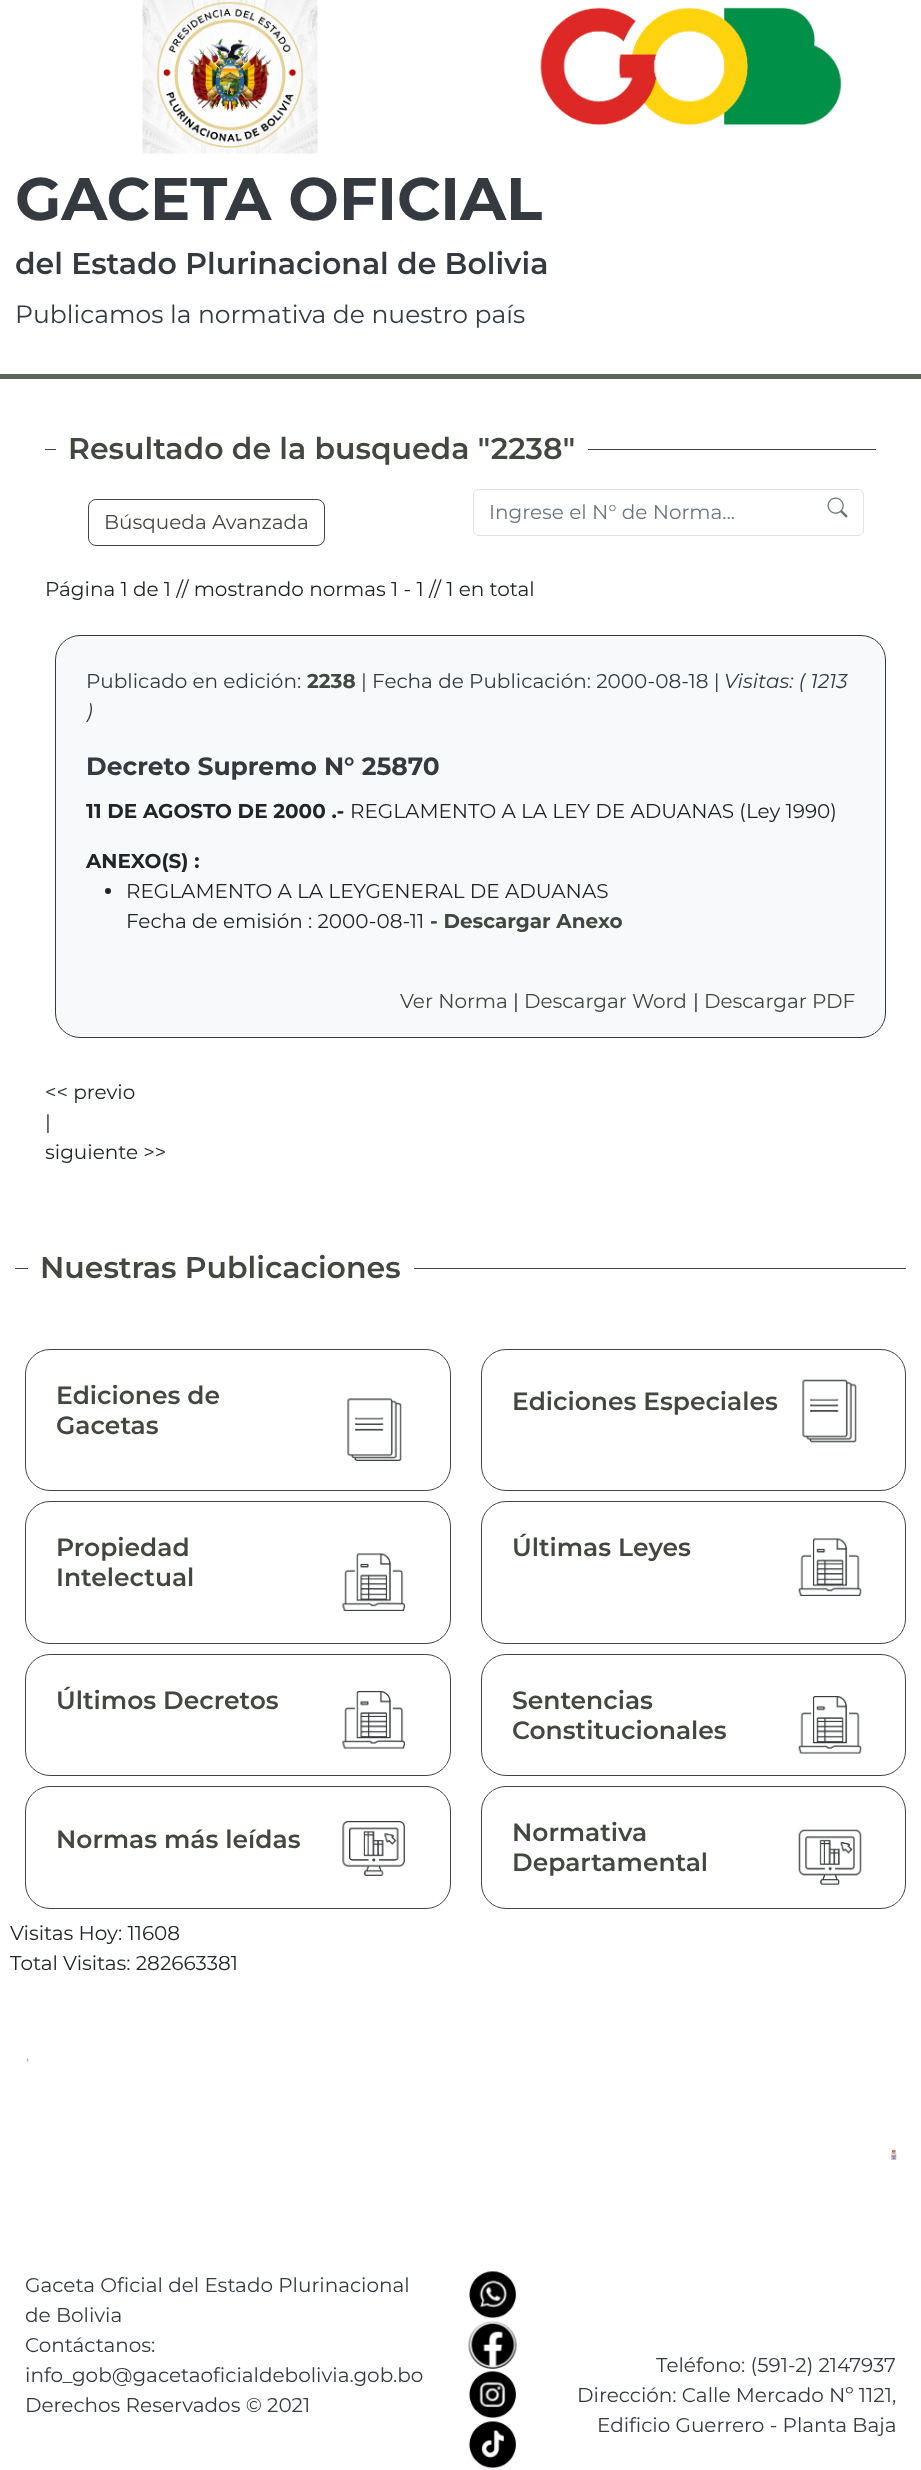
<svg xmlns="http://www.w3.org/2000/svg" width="921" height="2470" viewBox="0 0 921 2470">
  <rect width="100%" height="100%" fill="#ffffff"/>
  <image x="142" y="0" width="176" height="154" href="img1.png"/>
  <image x="540" y="7" width="302" height="119" href="img2.png"/>
  <text x="15" y="220" font-family="Montserrat" font-size="60" font-weight="bold" fill="#343a40">GACETA OFICIAL</text>
  <text x="15" y="274" font-family="Montserrat" font-size="30" font-weight="600" fill="#343a40">del Estado Plurinacional de Bolivia</text>
  <text x="15" y="323" font-family="Montserrat" font-size="25" fill="#343a40">Publicamos la normativa de nuestro país</text>
  <rect x="0" y="374" width="921" height="5" fill="#5c6359"/>
  <rect x="45" y="449" width="831" height="1" fill="#424740"/>
  <rect x="56" y="449" width="532" height="1" fill="#ffffff"/>
  <text x="68" y="459" font-family="Montserrat" font-size="30" font-weight="600" fill="#424740">Resultado de la busqueda "2238"</text>
  <rect x="88.5" y="499.5" width="236" height="46" rx="7.5" fill="none" stroke="#424740"/>
  <text x="104" y="529" font-family="Montserrat" font-size="20" fill="#424740">Búsqueda Avanzada</text>
  <rect x="473.5" y="489.5" width="390" height="46" rx="5.5" fill="none" stroke="#dee2e6"/>
  <text x="489" y="519" font-family="Montserrat" font-size="20" fill="#6c757d">Ingrese el N° de Norma...</text>
  <image x="827" y="497" width="21" height="21" href="img3.png"/>
  <text x="45" y="596" font-family="Montserrat" font-size="20" fill="#212529">Página 1 de 1 // mostrando normas 1 - 1 // 1 en total</text>
  <rect x="55.5" y="635.5" width="830" height="402" rx="24.5" fill="#f8f9fa" stroke="#343a40"/>
  <text x="86" y="688" font-family="Montserrat" font-size="20" fill="#343a40">Publicado en edición:</text>
  <text x="307" y="688" font-family="Montserrat" font-size="20" font-weight="bold" fill="#424740">2238</text>
  <text x="361" y="688" font-family="Montserrat" font-size="20" fill="#343a40">| Fecha de Publicación: 2000-08-18 |</text>
  <text x="724" y="688" font-family="Montserrat" font-size="20" font-style="italic" fill="#343a40">Visitas: ( 1213</text>
  <text x="86" y="718" font-family="Montserrat" font-size="20" font-style="italic" fill="#343a40">)</text>
  <text x="86" y="775" font-family="Montserrat" font-size="25" font-weight="bold" fill="#343a40">Decreto Supremo N° 25870</text>
  <text x="86" y="818" font-family="Montserrat" font-size="20" font-weight="bold" fill="#212529">11 DE AGOSTO DE 2000 .-</text>
  <text x="350" y="818" font-family="Montserrat" font-size="20" fill="#212529">REGLAMENTO A LA LEY DE ADUANAS (Ley 1990)</text>
  <text x="86" y="868" font-family="Montserrat" font-size="20" font-weight="bold" fill="#212529">ANEXO(S) :</text>
  <circle cx="108" cy="891" r="3" fill="#212529"/>
  <text x="126" y="898" font-family="Montserrat" font-size="20" fill="#212529">REGLAMENTO A LA LEYGENERAL DE ADUANAS</text>
  <text x="126" y="928" font-family="Montserrat" font-size="20" fill="#212529">Fecha de emisión : 2000-08-11</text>
  <text x="430" y="928" font-family="Montserrat" font-size="20" font-weight="bold" fill="#424740">- Descargar Anexo</text>
  <text x="400" y="1008" font-family="Montserrat" font-size="20" fill="#424740">Ver Norma</text>
  <text x="513" y="1008" font-family="Montserrat" font-size="20" fill="#212529">|</text>
  <text x="524" y="1008" font-family="Montserrat" font-size="20" fill="#424740">Descargar Word</text>
  <text x="693" y="1008" font-family="Montserrat" font-size="20" fill="#212529">|</text>
  <text x="704" y="1008" font-family="Montserrat" font-size="20" fill="#424740">Descargar PDF</text>
  <text x="45" y="1099" font-family="Montserrat" font-size="20" fill="#212529">&lt;&lt; previo</text>
  <text x="45" y="1129" font-family="Montserrat" font-size="20" fill="#212529">|</text>
  <text x="45" y="1159" font-family="Montserrat" font-size="20" fill="#212529">siguiente &gt;&gt;</text>
  <rect x="15" y="1268" width="891" height="1" fill="#424740"/>
  <rect x="28" y="1268" width="386" height="1" fill="#ffffff"/>
  <text x="40" y="1278" font-family="Montserrat" font-size="30" font-weight="600" fill="#424740">Nuestras Publicaciones</text>
  <rect x="25.5" y="1349.5" width="425" height="141" rx="24.5" fill="none" stroke="#424740"/>
  <text x="56" y="1404" font-family="Montserrat" font-size="25" font-weight="600" fill="#424740">Ediciones de</text>
  <text x="56" y="1434" font-family="Montserrat" font-size="25" font-weight="600" fill="#424740">Gacetas</text>
  <image x="347" y="1398" width="55" height="63" href="img4.png"/>
  <rect x="481.5" y="1349.5" width="424" height="141" rx="24.5" fill="none" stroke="#424740"/>
  <text x="512" y="1410" font-family="Montserrat" font-size="25" font-weight="600" fill="#424740">Ediciones Especiales</text>
  <image x="802" y="1379" width="55" height="64" href="img5.png"/>
  <rect x="25.5" y="1501.5" width="425" height="142" rx="24.5" fill="none" stroke="#424740"/>
  <text x="56" y="1556" font-family="Montserrat" font-size="25" font-weight="600" fill="#424740">Propiedad</text>
  <text x="56" y="1586" font-family="Montserrat" font-size="25" font-weight="600" fill="#424740">Intelectual</text>
  <image x="342" y="1553" width="63" height="58" href="img6.png"/>
  <rect x="481.5" y="1501.5" width="424" height="142" rx="24.5" fill="none" stroke="#424740"/>
  <text x="512" y="1556" font-family="Montserrat" font-size="25" font-weight="600" fill="#424740">Últimas Leyes</text>
  <image x="798" y="1538" width="64" height="58" href="img7.png"/>
  <rect x="25.5" y="1654.5" width="425" height="121" rx="24.5" fill="none" stroke="#424740"/>
  <text x="56" y="1709" font-family="Montserrat" font-size="25" font-weight="600" fill="#424740">Últimos Decretos</text>
  <image x="342" y="1691" width="63" height="58" href="img8.png"/>
  <rect x="481.5" y="1654.5" width="424" height="121" rx="24.5" fill="none" stroke="#424740"/>
  <text x="512" y="1709" font-family="Montserrat" font-size="25" font-weight="600" fill="#424740">Sentencias</text>
  <text x="512" y="1739" font-family="Montserrat" font-size="25" font-weight="600" fill="#424740">Constitucionales</text>
  <image x="798" y="1696" width="64" height="58" href="img9.png"/>
  <rect x="25.5" y="1786.5" width="425" height="122" rx="24.5" fill="none" stroke="#424740"/>
  <text x="56" y="1848" font-family="Montserrat" font-size="25" font-weight="600" fill="#424740">Normas más leídas</text>
  <image x="342" y="1821" width="63" height="55" href="img10.png"/>
  <rect x="481.5" y="1786.5" width="424" height="122" rx="24.5" fill="none" stroke="#424740"/>
  <text x="512" y="1841" font-family="Montserrat" font-size="25" font-weight="600" fill="#424740">Normativa</text>
  <text x="512" y="1871" font-family="Montserrat" font-size="25" font-weight="600" fill="#424740">Departamental</text>
  <image x="798" y="1829" width="64" height="56" href="img11.png"/>
  <text x="10" y="1940" font-family="Montserrat" font-size="20" fill="#212529">Visitas Hoy: 11608</text>
  <text x="10" y="1970" font-family="Montserrat" font-size="20" fill="#212529">Total Visitas: 282663381</text>
  <image x="26" y="2058" width="3" height="5" href="img12.png"/>
  <image x="891" y="2148" width="6" height="7" href="img13.png"/>
  <image x="891" y="2154" width="6" height="6" href="img14.png"/>
  <text x="25" y="2292" font-family="Montserrat" font-size="20" fill="#343a40">Gaceta Oficial del Estado Plurinacional</text>
  <text x="25" y="2322" font-family="Montserrat" font-size="20" fill="#343a40">de Bolivia</text>
  <text x="25" y="2352" font-family="Montserrat" font-size="20" fill="#343a40">Contáctanos:</text>
  <text x="25" y="2382" font-family="Montserrat" font-size="20" fill="#343a40">info_gob@gacetaoficialdebolivia.gob.bo</text>
  <text x="25" y="2412" font-family="Montserrat" font-size="20" fill="#343a40">Derechos Reservados © 2021</text>
  <image x="468" y="2270" width="49" height="50" href="img15.png"/>
  <image x="468" y="2320" width="49" height="49" href="img16.png"/>
  <image x="468" y="2370" width="49" height="50" href="img17.png"/>
  <image x="468" y="2420" width="49" height="50" href="img18.png"/>
  <text x="656" y="2372" font-family="Montserrat" font-size="20" fill="#343a40">Teléfono: (591-2) 2147937</text>
  <text x="577" y="2402" font-family="Montserrat" font-size="20" fill="#343a40">Dirección: Calle Mercado Nº 1121,</text>
  <text x="597" y="2432" font-family="Montserrat" font-size="20" fill="#343a40">Edificio Guerrero - Planta Baja</text>
</svg>
